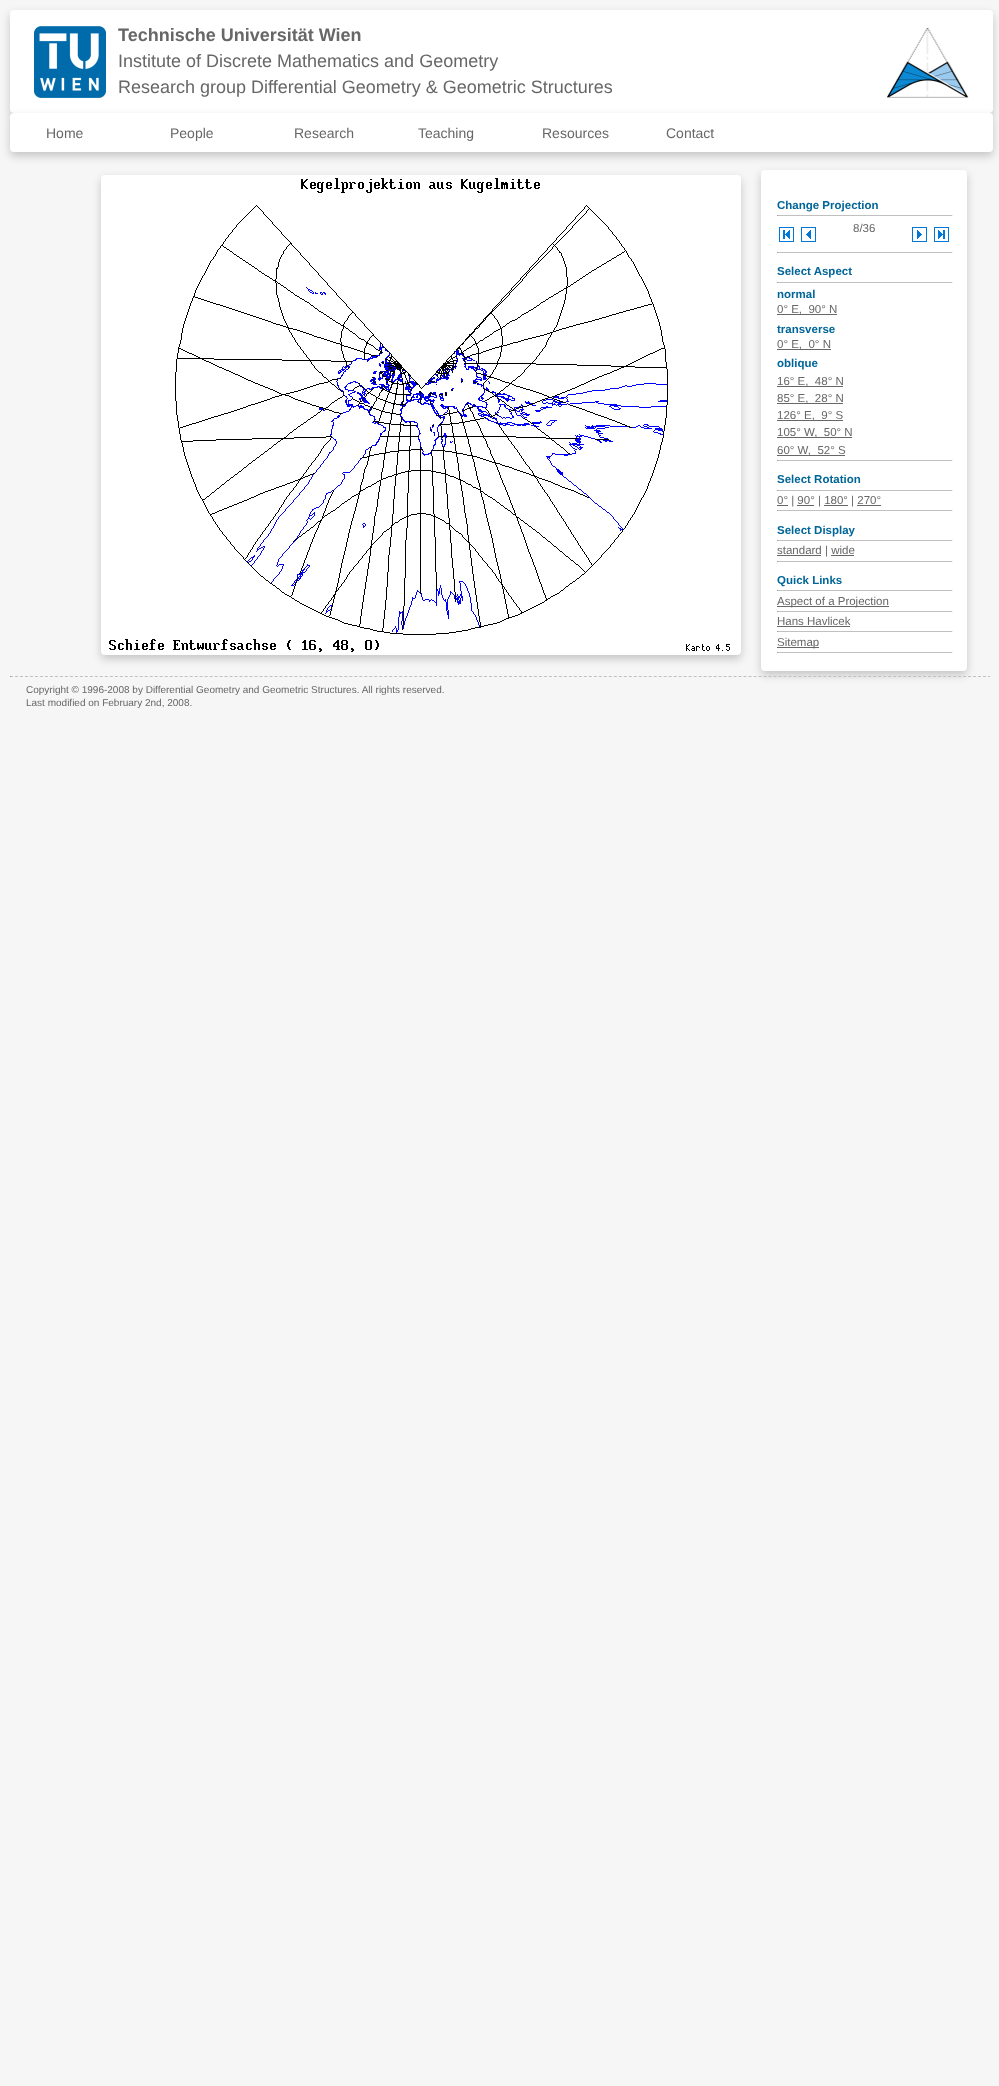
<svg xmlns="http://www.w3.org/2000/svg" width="999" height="2086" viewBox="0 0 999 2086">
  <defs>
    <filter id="blur1" x="-50%" y="-200%" width="200%" height="500%"><feGaussianBlur stdDeviation="4"/></filter>
  </defs>
  <rect width="100%" height="100%" fill="#f6f6f6"/>
  <rect x="10" y="14" width="983" height="103" rx="4" fill="#000000" fill-opacity="0.2" filter="url(#blur1)"/>
  <rect x="10" y="10" width="983" height="103" rx="4" fill="#ffffff"/>
  <image x="34" y="26" width="72" height="72" href="img1.png"/>
  <text x="118" y="41" font-family="Liberation Sans" font-size="18" font-weight="bold" fill="#676767">Technische Universität Wien</text>
  <image x="886" y="27" width="83" height="71" href="img2.png"/>
  <text x="118" y="67" font-family="Liberation Sans" font-size="18" fill="#676767">Institute of Discrete Mathematics and Geometry</text>
  <text x="118" y="93" font-family="Liberation Sans" font-size="18" fill="#676767">Research group Differential Geometry &amp; Geometric Structures</text>
  <rect x="10" y="117" width="983" height="39" rx="4" fill="#000000" fill-opacity="0.2" filter="url(#blur1)"/>
  <rect x="10" y="113" width="983" height="39" rx="4" fill="#ffffff"/>
  <text x="46" y="138" font-family="Liberation Sans" font-size="14" fill="#676767">Home</text>
  <text x="170" y="138" font-family="Liberation Sans" font-size="14" fill="#676767">People</text>
  <text x="294" y="138" font-family="Liberation Sans" font-size="14" fill="#676767">Research</text>
  <text x="418" y="138" font-family="Liberation Sans" font-size="14" fill="#676767">Teaching</text>
  <text x="542" y="138" font-family="Liberation Sans" font-size="14" fill="#676767">Resources</text>
  <text x="666" y="138" font-family="Liberation Sans" font-size="14" fill="#676767">Contact</text>
  <rect x="101" y="179" width="640" height="480" rx="4" fill="#000000" fill-opacity="0.2" filter="url(#blur1)"/>
  <image x="101" y="175" width="640" height="480" href="img3.png"/>
  <rect x="761" y="174" width="206" height="501" rx="4" fill="#000000" fill-opacity="0.2" filter="url(#blur1)"/>
  <rect x="761" y="170" width="206" height="501" rx="4" fill="#ffffff"/>
  <text x="777" y="209" font-family="Liberation Sans" font-size="11.5" font-weight="bold" fill="#006699">Change Projection</text>
  <rect x="777" y="215" width="176" height="1" fill="#c0c0c0"/>
  <rect x="952" y="215" width="1" height="1" fill="#eeeeee"/>
  <rect x="777" y="215" width="1" height="1" fill="#9f9f9f"/>
  <image x="779" y="227" width="15" height="15" href="img4.png"/>
  <image x="801" y="227" width="15" height="15" href="img5.png"/>
  <text x="853" y="232" font-family="Liberation Sans" font-size="11.5" fill="#676767">8/36</text>
  <image x="912" y="227" width="15" height="15" href="img6.png"/>
  <image x="934" y="227" width="15" height="15" href="img7.png"/>
  <rect x="777" y="252" width="176" height="1" fill="#c0c0c0"/>
  <rect x="952" y="252" width="1" height="1" fill="#eeeeee"/>
  <rect x="777" y="252" width="1" height="1" fill="#9f9f9f"/>
  <text x="777" y="275" font-family="Liberation Sans" font-size="11.5" font-weight="bold" fill="#006699">Select Aspect</text>
  <rect x="777" y="282" width="176" height="1" fill="#c0c0c0"/>
  <rect x="952" y="282" width="1" height="1" fill="#eeeeee"/>
  <rect x="777" y="282" width="1" height="1" fill="#9f9f9f"/>
  <text x="777" y="298" font-family="Liberation Sans" font-size="11.5" font-weight="bold" fill="#006699">normal</text>
  <rect x="777" y="314" width="60" height="1" fill="#676767"/>
  <text x="777" y="313" font-family="Liberation Sans" font-size="11.5" fill="#676767" xml:space="preserve">0° E,  90° N</text>
  <text x="777" y="333" font-family="Liberation Sans" font-size="11.5" font-weight="bold" fill="#006699">transverse</text>
  <rect x="777" y="349" width="54" height="1" fill="#676767"/>
  <text x="777" y="348" font-family="Liberation Sans" font-size="11.5" fill="#676767" xml:space="preserve">0° E,  0° N</text>
  <text x="777" y="367" font-family="Liberation Sans" font-size="11.5" font-weight="bold" fill="#006699">oblique</text>
  <rect x="777" y="386" width="66" height="1" fill="#676767"/>
  <text x="777" y="385" font-family="Liberation Sans" font-size="11.5" fill="#676767" xml:space="preserve">16° E,  48° N</text>
  <rect x="777" y="403" width="66" height="1" fill="#676767"/>
  <text x="777" y="402" font-family="Liberation Sans" font-size="11.5" fill="#676767" xml:space="preserve">85° E,  28° N</text>
  <rect x="777" y="420" width="66" height="1" fill="#676767"/>
  <text x="777" y="419" font-family="Liberation Sans" font-size="11.5" fill="#676767" xml:space="preserve">126° E,  9° S</text>
  <rect x="777" y="437" width="75" height="1" fill="#676767"/>
  <text x="777" y="436" font-family="Liberation Sans" font-size="11.5" fill="#676767" xml:space="preserve">105° W,  50° N</text>
  <rect x="777" y="455" width="68" height="1" fill="#676767"/>
  <text x="777" y="454" font-family="Liberation Sans" font-size="11.5" fill="#676767" xml:space="preserve">60° W,  52° S</text>
  <rect x="777" y="460" width="176" height="1" fill="#c0c0c0"/>
  <rect x="952" y="460" width="1" height="1" fill="#eeeeee"/>
  <rect x="777" y="460" width="1" height="1" fill="#9f9f9f"/>
  <text x="777" y="483" font-family="Liberation Sans" font-size="11.5" font-weight="bold" fill="#006699">Select Rotation</text>
  <rect x="777" y="490" width="176" height="1" fill="#c0c0c0"/>
  <rect x="952" y="490" width="1" height="1" fill="#eeeeee"/>
  <rect x="777" y="490" width="1" height="1" fill="#9f9f9f"/>
  <rect x="777" y="505" width="11" height="1" fill="#676767"/>
  <text x="777" y="504" font-family="Liberation Sans" font-size="11.5" fill="#676767">0° | 90° | 180° | 270°</text>
  <rect x="797" y="505" width="17" height="1" fill="#676767"/>
  <rect x="824" y="505" width="24" height="1" fill="#676767"/>
  <rect x="857" y="505" width="24" height="1" fill="#676767"/>
  <rect x="777" y="510" width="176" height="1" fill="#c0c0c0"/>
  <rect x="952" y="510" width="1" height="1" fill="#eeeeee"/>
  <rect x="777" y="510" width="1" height="1" fill="#9f9f9f"/>
  <text x="777" y="534" font-family="Liberation Sans" font-size="11.5" font-weight="bold" fill="#006699">Select Display</text>
  <rect x="777" y="540" width="176" height="1" fill="#c0c0c0"/>
  <rect x="952" y="540" width="1" height="1" fill="#eeeeee"/>
  <rect x="777" y="540" width="1" height="1" fill="#9f9f9f"/>
  <rect x="777" y="555" width="44" height="1" fill="#676767"/>
  <text x="777" y="554" font-family="Liberation Sans" font-size="11.5" fill="#676767">standard | wide</text>
  <rect x="831" y="555" width="23" height="1" fill="#676767"/>
  <rect x="777" y="561" width="176" height="1" fill="#c0c0c0"/>
  <rect x="952" y="561" width="1" height="1" fill="#eeeeee"/>
  <rect x="777" y="561" width="1" height="1" fill="#9f9f9f"/>
  <text x="777" y="584" font-family="Liberation Sans" font-size="11.5" font-weight="bold" fill="#006699">Quick Links</text>
  <rect x="777" y="590" width="176" height="1" fill="#c0c0c0"/>
  <rect x="952" y="590" width="1" height="1" fill="#eeeeee"/>
  <rect x="777" y="590" width="1" height="1" fill="#9f9f9f"/>
  <rect x="777" y="606" width="112" height="1" fill="#676767"/>
  <text x="777" y="605" font-family="Liberation Sans" font-size="11.5" fill="#676767">Aspect of a Projection</text>
  <rect x="777" y="611" width="176" height="1" fill="#c0c0c0"/>
  <rect x="952" y="611" width="1" height="1" fill="#eeeeee"/>
  <rect x="777" y="611" width="1" height="1" fill="#9f9f9f"/>
  <text x="777" y="625" font-family="Liberation Sans" font-size="11.5" fill="#676767">Hans Havlicek</text>
  <rect x="777" y="626" width="73" height="1" fill="#676767"/>
  <rect x="777" y="631" width="176" height="1" fill="#c0c0c0"/>
  <rect x="952" y="631" width="1" height="1" fill="#eeeeee"/>
  <rect x="777" y="631" width="1" height="1" fill="#9f9f9f"/>
  <rect x="777" y="647" width="42" height="1" fill="#676767"/>
  <text x="777" y="646" font-family="Liberation Sans" font-size="11.5" fill="#676767">Sitemap</text>
  <rect x="777" y="652" width="176" height="1" fill="#c0c0c0"/>
  <rect x="952" y="652" width="1" height="1" fill="#eeeeee"/>
  <rect x="777" y="652" width="1" height="1" fill="#9f9f9f"/>
  <path d="M10 676.5H991" fill="none" stroke="#c0c0c0" stroke-dasharray="3 1.99"/>
  <rect x="990" y="676" width="1" height="1" fill="#eeeeee"/>
  <rect x="10" y="676" width="1" height="1" fill="#9f9f9f"/>
  <text x="26" y="693" font-family="Liberation Sans" font-size="10" fill="#676767">Copyright © 1996-2008 by Differential Geometry and Geometric Structures. All rights reserved.</text>
  <text x="26" y="706" font-family="Liberation Sans" font-size="10" fill="#676767">Last modified on February 2nd, 2008.</text>
</svg>
